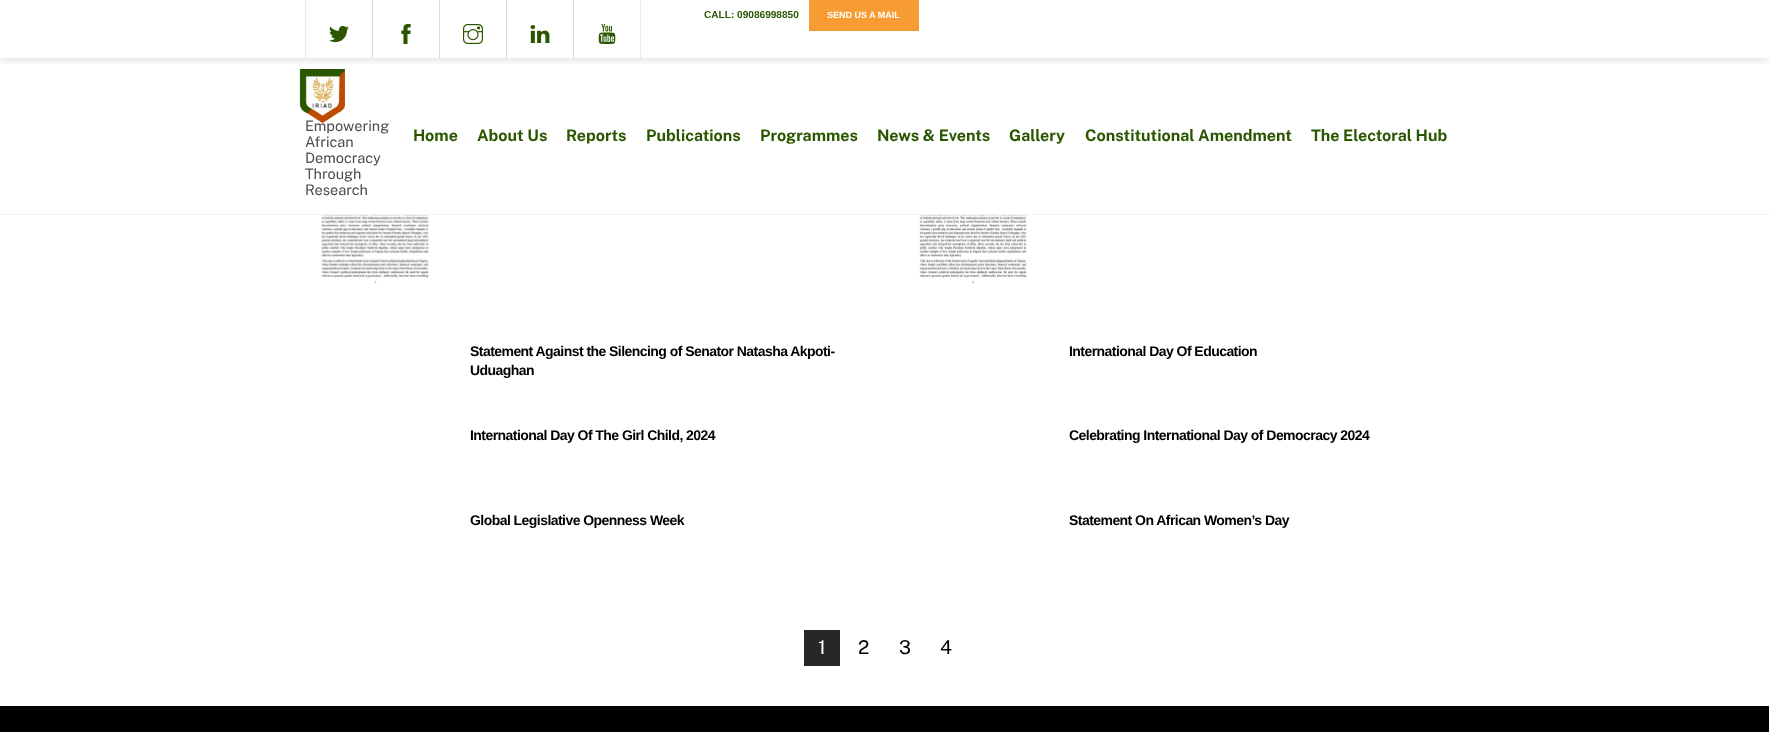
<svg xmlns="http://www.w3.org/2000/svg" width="1769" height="732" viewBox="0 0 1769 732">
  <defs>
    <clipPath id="clip1"><rect x="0" y="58" width="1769" height="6"/></clipPath>
    <filter id="blur1" x="-50%" y="-200%" width="200%" height="500%"><feGaussianBlur stdDeviation="3.5"/></filter>
  </defs>
  <rect width="100%" height="100%" fill="#ffffff"/>
  <rect x="0" y="214" width="1769" height="1" fill="#f2f2f2"/>
  <image x="299" y="69" width="46" height="54" href="img6.png"/>
  <g clip-path="url(#clip1)">
    <rect x="0" y="3" width="1769" height="58" fill="#000000" fill-opacity="0.1" filter="url(#blur1)"/>
  </g>
  <rect x="372" y="0" width="1" height="58" fill="#d9d9d9"/>
  <rect x="305" y="0" width="1" height="58" fill="#e9e9e9"/>
  <image x="329" y="26" width="20" height="17" href="img1.png"/>
  <rect x="439" y="0" width="1" height="58" fill="#d9d9d9"/>
  <image x="401" y="24" width="10" height="20" href="img2.png"/>
  <rect x="506" y="0" width="1" height="58" fill="#d9d9d9"/>
  <image x="463" y="24" width="20" height="20" href="img3.png"/>
  <rect x="573" y="0" width="1" height="58" fill="#d9d9d9"/>
  <image x="530" y="25" width="20" height="18" href="img4.png"/>
  <rect x="640" y="0" width="1" height="58" fill="#e9e9e9"/>
  <image x="598" y="24" width="18" height="20" href="img5.png"/>
  <text x="704" y="18" font-family="Liberation Sans" font-size="10.1" font-weight="bold" fill="#2a5600">CALL: 09086998850</text>
  <rect x="809" y="0" width="110" height="31" fill="#f69c32"/>
  <text x="827" y="18" font-family="Liberation Sans" font-size="9" font-weight="bold" fill="#ffffff">SEND US A MAIL</text>
  <text x="305" y="131" font-family="Public Sans" font-size="14.5" fill="#4d4d4d">Empowering</text>
  <text x="305" y="147" font-family="Public Sans" font-size="14.5" fill="#4d4d4d">African</text>
  <text x="305" y="163" font-family="Public Sans" font-size="14.5" fill="#4d4d4d">Democracy</text>
  <text x="305" y="179" font-family="Public Sans" font-size="14.5" fill="#4d4d4d">Through</text>
  <text x="305" y="195" font-family="Public Sans" font-size="14.5" fill="#4d4d4d">Research</text>
  <text x="413" y="141" font-family="Public Sans" font-size="16" font-weight="bold" fill="#2a5600">Home</text>
  <text x="477" y="141" font-family="Public Sans" font-size="16" font-weight="bold" fill="#2a5600">About Us</text>
  <text x="566" y="141" font-family="Public Sans" font-size="16" font-weight="bold" fill="#2a5600">Reports</text>
  <text x="646" y="141" font-family="Public Sans" font-size="16" font-weight="bold" fill="#2a5600">Publications</text>
  <text x="760" y="141" font-family="Public Sans" font-size="16" font-weight="bold" fill="#2a5600">Programmes</text>
  <text x="877" y="141" font-family="Public Sans" font-size="16" font-weight="bold" fill="#2a5600">News &amp; Events</text>
  <text x="1009" y="141" font-family="Public Sans" font-size="16" font-weight="bold" fill="#2a5600">Gallery</text>
  <text x="1085" y="141" font-family="Public Sans" font-size="16" font-weight="bold" fill="#2a5600">Constitutional Amendment</text>
  <text x="1311" y="141" font-family="Public Sans" font-size="16" font-weight="bold" fill="#2a5600">The Electoral Hub</text>
  <image x="321" y="215" width="124" height="69" href="img7.png"/>
  <image x="919" y="215" width="124" height="69" href="img8.png"/>
  <text x="470" y="356" font-family="Liberation Sans" font-size="14" font-weight="bold" letter-spacing="-0.55" fill="#000000">Statement Against the Silencing of Senator Natasha Akpoti-</text>
  <text x="470" y="375" font-family="Liberation Sans" font-size="14" font-weight="bold" letter-spacing="-0.55" fill="#000000">Uduaghan</text>
  <text x="1069" y="356" font-family="Liberation Sans" font-size="14" font-weight="bold" letter-spacing="-0.55" fill="#000000">International Day Of Education</text>
  <text x="470" y="440" font-family="Liberation Sans" font-size="14" font-weight="bold" letter-spacing="-0.55" fill="#000000">International Day Of The Girl Child, 2024</text>
  <text x="1069" y="440" font-family="Liberation Sans" font-size="14" font-weight="bold" letter-spacing="-0.55" fill="#000000">Celebrating International Day of Democracy 2024</text>
  <text x="470" y="525" font-family="Liberation Sans" font-size="14" font-weight="bold" letter-spacing="-0.55" fill="#000000">Global Legislative Openness Week</text>
  <text x="1069" y="525" font-family="Liberation Sans" font-size="14" font-weight="bold" letter-spacing="-0.55" fill="#000000">Statement On African Women’s Day</text>
  <rect x="804" y="630" width="36" height="36" fill="#272727"/>
  <text x="818" y="654" font-family="Public Sans" font-size="19" fill="#ffffff">1</text>
  <text x="858" y="654" font-family="Public Sans" font-size="19" fill="#000000">2</text>
  <text x="899" y="654" font-family="Public Sans" font-size="19" fill="#000000">3</text>
  <text x="940" y="654" font-family="Public Sans" font-size="19" fill="#000000">4</text>
  <rect x="0" y="706" width="1769" height="26" fill="#000000"/>
</svg>
